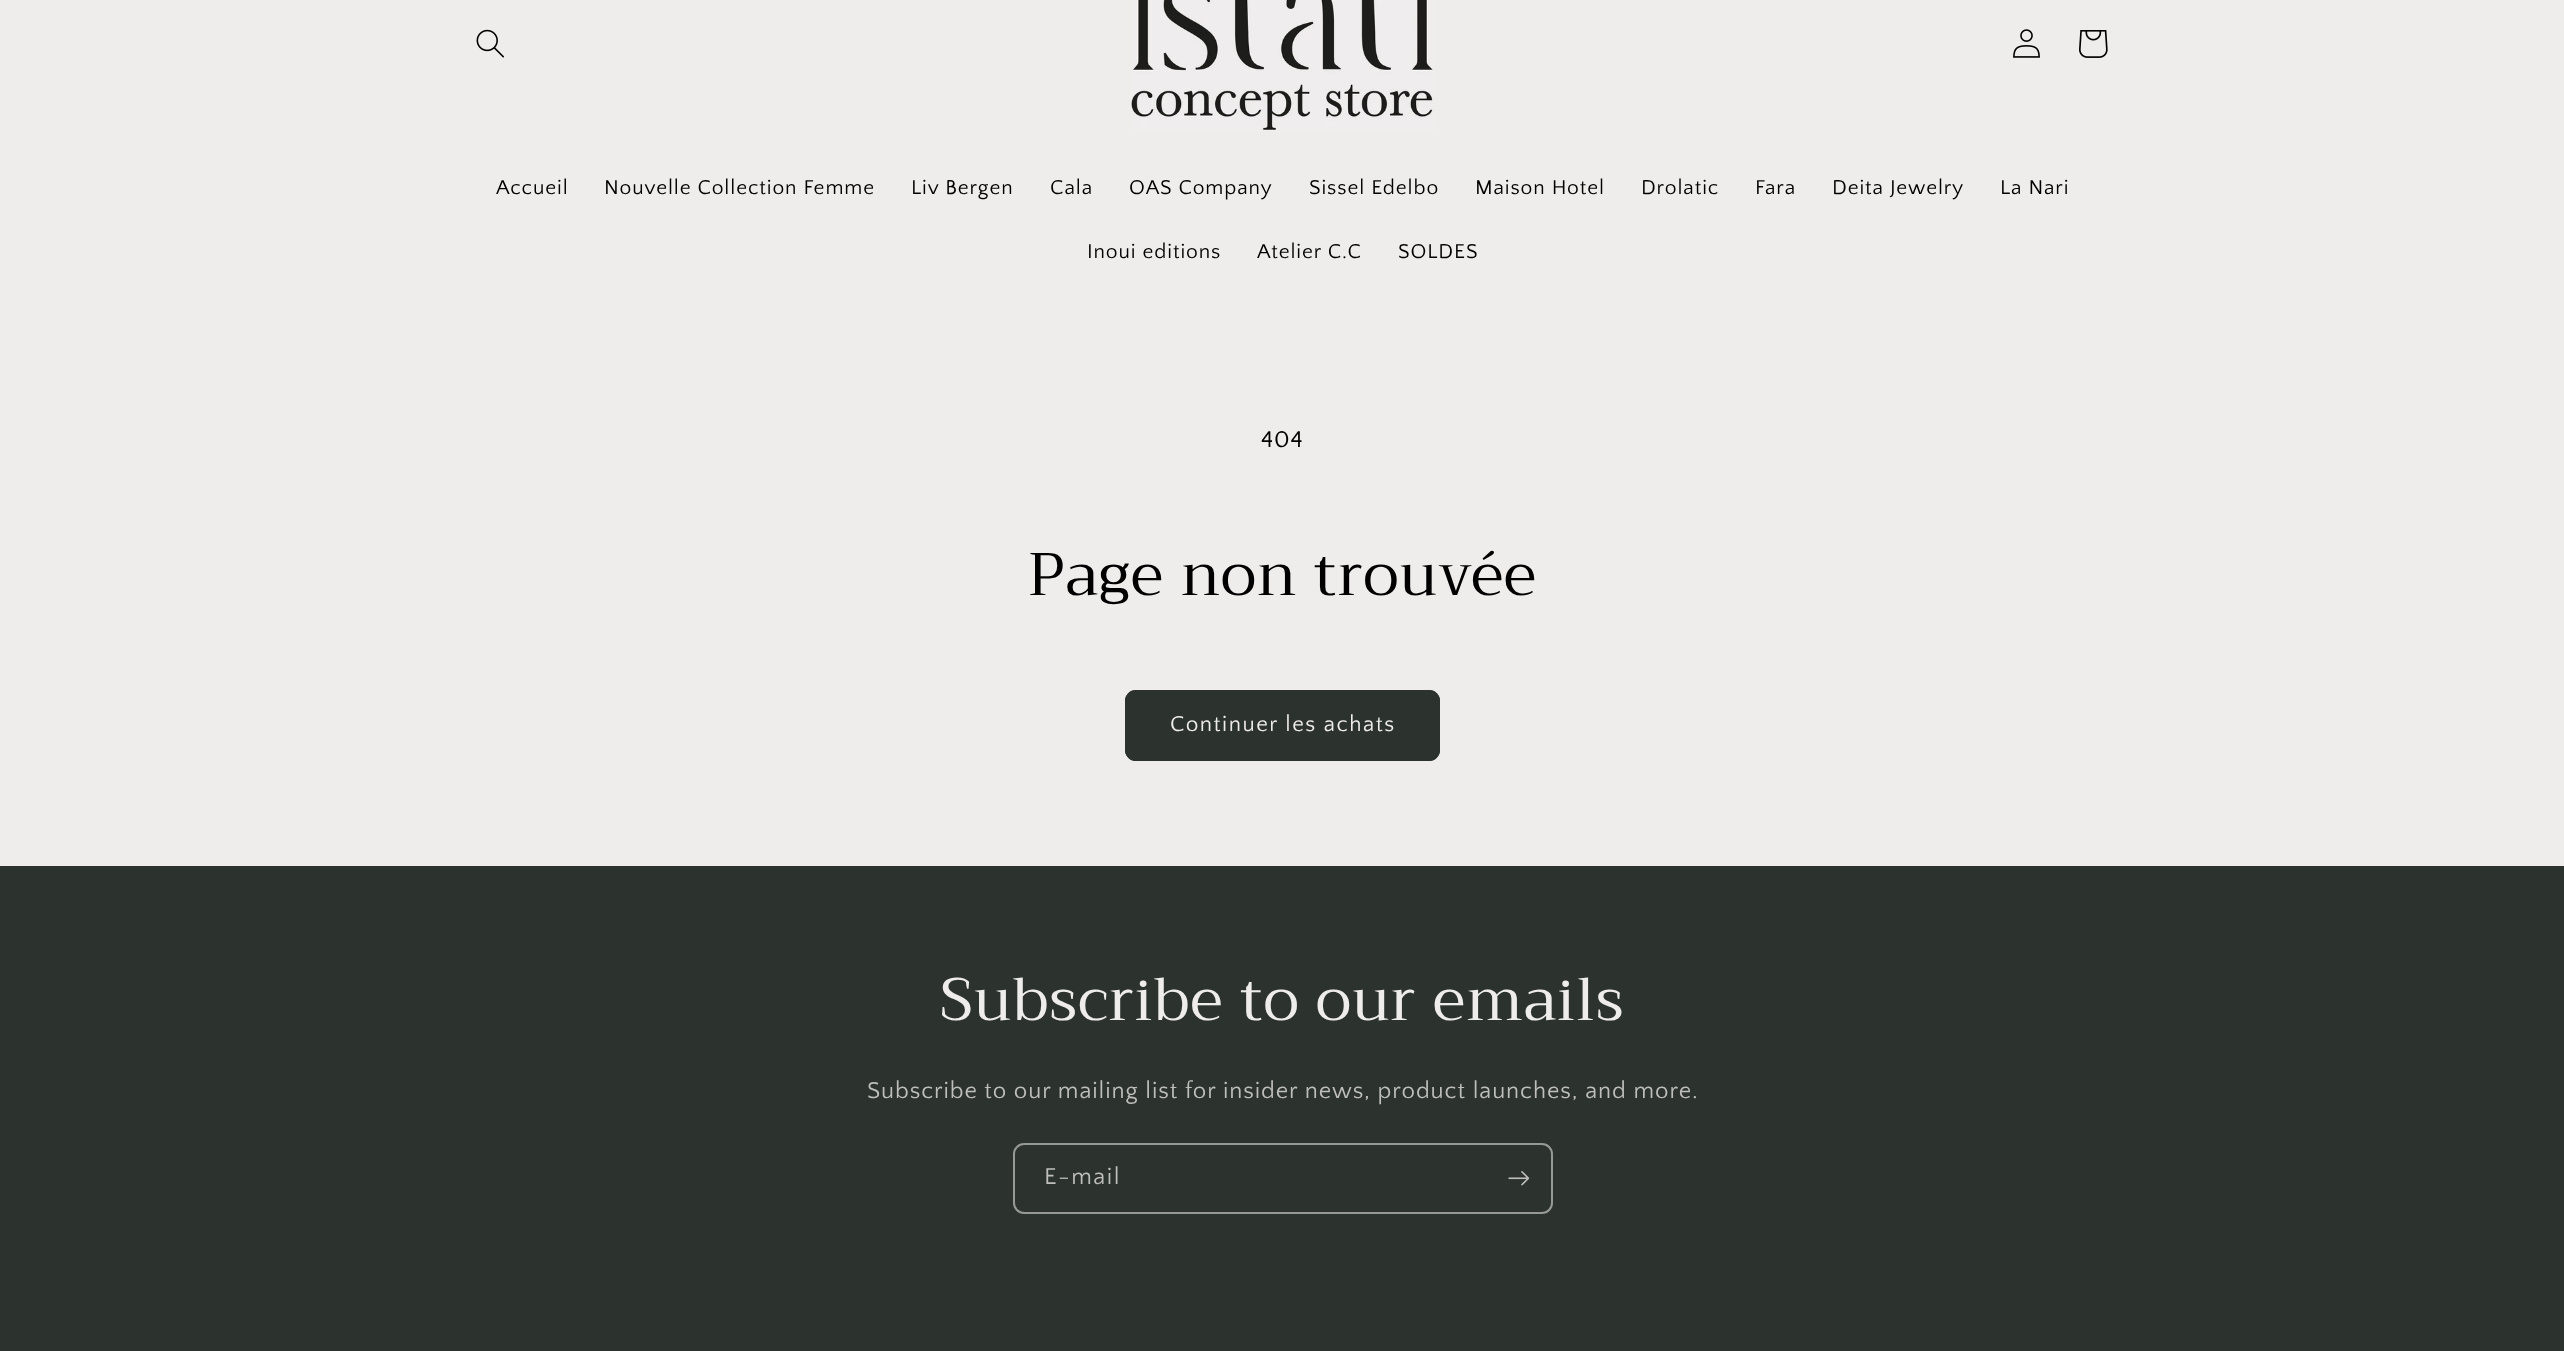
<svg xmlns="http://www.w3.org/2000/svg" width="2564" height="1351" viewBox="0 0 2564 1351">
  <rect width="100%" height="100%" fill="#efecec"/>
  <image x="476" y="29" width="28" height="29" href="img1.png"/>
  <image x="1131" y="0" width="303" height="131" href="img2.png"/>
  <image x="2013" y="29" width="27" height="29" href="img3.png"/>
  <image x="2079" y="30" width="29" height="28" href="img4.png"/>
  <text x="496" y="194" font-family="Quattrocento Sans" font-size="21" letter-spacing="0.9" fill="#000000">Accueil</text>
  <text x="604" y="194" font-family="Quattrocento Sans" font-size="21" letter-spacing="0.9" fill="#000000">Nouvelle Collection Femme</text>
  <text x="911" y="194" font-family="Quattrocento Sans" font-size="21" letter-spacing="0.9" fill="#000000">Liv Bergen</text>
  <text x="1050" y="194" font-family="Quattrocento Sans" font-size="21" letter-spacing="0.9" fill="#000000">Cala</text>
  <text x="1129" y="194" font-family="Quattrocento Sans" font-size="21" letter-spacing="0.9" fill="#000000">OAS Company</text>
  <text x="1309" y="194" font-family="Quattrocento Sans" font-size="21" letter-spacing="0.9" fill="#000000">Sissel Edelbo</text>
  <text x="1475" y="194" font-family="Quattrocento Sans" font-size="21" letter-spacing="0.9" fill="#000000">Maison Hotel</text>
  <text x="1641" y="194" font-family="Quattrocento Sans" font-size="21" letter-spacing="0.9" fill="#000000">Drolatic</text>
  <text x="1755" y="194" font-family="Quattrocento Sans" font-size="21" letter-spacing="0.9" fill="#000000">Fara</text>
  <text x="1832" y="194" font-family="Quattrocento Sans" font-size="21" letter-spacing="0.9" fill="#000000">Deita Jewelry</text>
  <text x="2000" y="194" font-family="Quattrocento Sans" font-size="21" letter-spacing="0.9" fill="#000000">La Nari</text>
  <text x="1087" y="258" font-family="Quattrocento Sans" font-size="21" letter-spacing="0.9" fill="#000000">Inoui editions</text>
  <text x="1257" y="258" font-family="Quattrocento Sans" font-size="21" letter-spacing="0.9" fill="#000000">Atelier C.C</text>
  <text x="1398" y="258" font-family="Quattrocento Sans" font-size="21" letter-spacing="0.9" fill="#000000">SOLDES</text>
  <text x="1261" y="447" font-family="Quattrocento Sans" font-size="24" letter-spacing="0.9" fill="#000000">404</text>
  <text x="1028" y="595" font-family="Trirong" font-size="60" letter-spacing="0.9" fill="#000000">Page non trouvée</text>
  <rect x="1125" y="690" width="315" height="71" rx="11" fill="#2c332f"/>
  <rect x="1126" y="691" width="313" height="69" rx="10" fill="none" stroke="#2c332f" stroke-width="2"/>
  <text x="1170" y="731" font-family="Quattrocento Sans" font-size="22.5" letter-spacing="1.5" fill="#efecec">Continuer les achats</text>
  <rect x="0" y="866" width="2564" height="485" fill="#2c332f"/>
  <text x="940" y="1020" font-family="Trirong" font-size="60" letter-spacing="0.9" fill="#efecec">Subscribe to our emails</text>
  <text x="867" y="1098" font-family="Quattrocento Sans" font-size="24" letter-spacing="0.9" fill="#bebebd">Subscribe to our mailing list for insider news, product launches, and more.</text>
  <rect x="1014" y="1144" width="538" height="69" rx="10" fill="none" stroke="#979997" stroke-width="2"/>
  <text x="1044" y="1184" font-family="Quattrocento Sans" font-size="24" letter-spacing="1.5" fill="#bebebd">E-mail</text>
  <image x="1508" y="1171" width="22" height="15" href="img5.png"/>
</svg>
